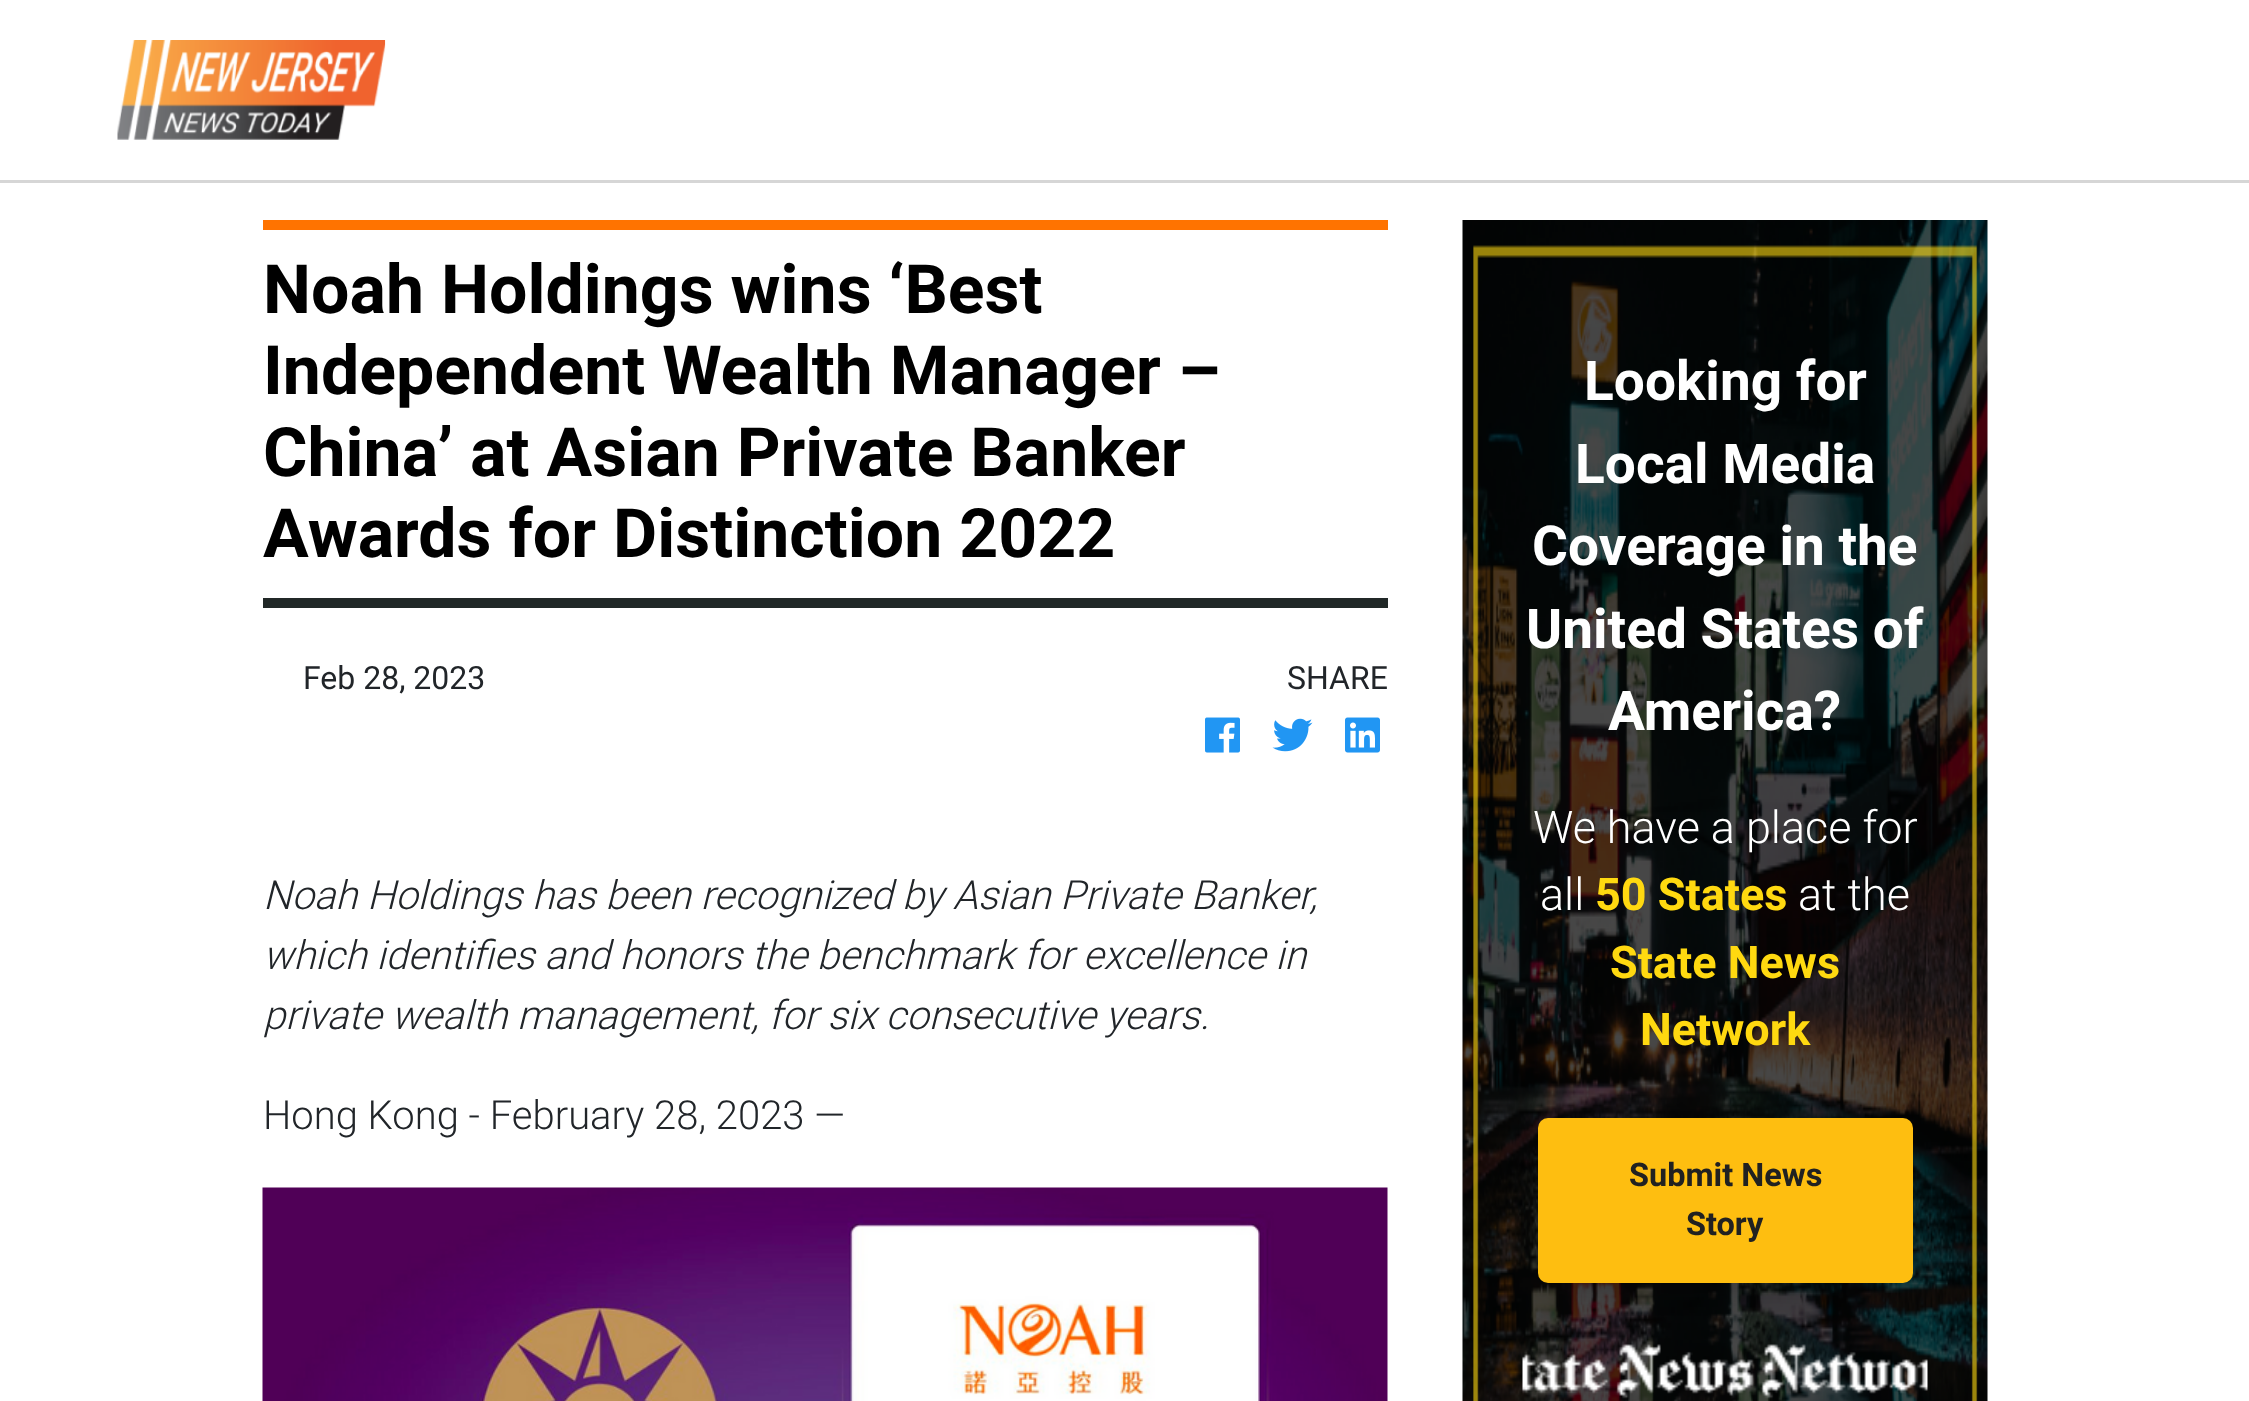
<svg xmlns="http://www.w3.org/2000/svg" width="2249" height="1401" viewBox="0 0 2249 1401">
  <defs>
    <filter id="blur1" x="-50%" y="-200%" width="200%" height="500%"><feGaussianBlur stdDeviation="20"/></filter>
  </defs>
  <rect width="100%" height="100%" fill="#ffffff"/>
  <rect x="0" y="180" width="2249" height="3" fill="#d6d6d6"/>
  <image x="117" y="40" width="269" height="100" href="img1.png"/>
  <rect x="263" y="220" width="1125" height="10" fill="#ff7300"/>
  <rect x="263" y="598" width="1125" height="10" fill="#212827"/>
  <text x="263" y="313" font-family="Roboto" font-size="68" font-weight="bold" fill="#000000">Noah Holdings wins ‘Best</text>
  <text x="263" y="394" font-family="Roboto" font-size="68" font-weight="bold" fill="#000000">Independent Wealth Manager –</text>
  <text x="263" y="476" font-family="Roboto" font-size="68" font-weight="bold" fill="#000000">China’ at Asian Private Banker</text>
  <text x="263" y="557" font-family="Roboto" font-size="68" font-weight="bold" fill="#000000">Awards for Distinction 2022</text>
  <text x="303" y="689" font-family="Roboto" font-size="32" fill="#212529">Feb 28, 2023</text>
  <text x="1287" y="689" font-family="Roboto" font-size="32" fill="#212529">SHARE</text>
  <image x="1205" y="717" width="35" height="36" href="img2.png"/>
  <image x="1272" y="718" width="41" height="34" href="img3.png"/>
  <image x="1345" y="717" width="35" height="36" href="img4.png"/>
  <text x="263" y="909" font-family="Roboto" font-size="40" font-weight="300" font-style="italic" fill="#212529">Noah Holdings has been recognized by Asian Private Banker,</text>
  <text x="263" y="969" font-family="Roboto" font-size="40" font-weight="300" font-style="italic" fill="#212529">which identifies and honors the benchmark for excellence in</text>
  <text x="263" y="1029" font-family="Roboto" font-size="40" font-weight="300" font-style="italic" fill="#212529">private wealth management, for six consecutive years.</text>
  <text x="263" y="1129" font-family="Roboto" font-size="40" font-weight="300" fill="#212529">Hong Kong - February 28, 2023 —</text>
  <image x="262" y="1187" width="1126" height="214" href="img5.png"/>
  <image x="1462" y="220" width="526" height="1181" href="img6.png"/>
  <text x="1584" y="400" font-family="Roboto" font-size="55" font-weight="bold" fill="#ffffff">Looking for</text>
  <text x="1575" y="483" font-family="Roboto" font-size="55" font-weight="bold" fill="#ffffff">Local Media</text>
  <text x="1532" y="565" font-family="Roboto" font-size="55" font-weight="bold" fill="#ffffff">Coverage in the</text>
  <text x="1526" y="648" font-family="Roboto" font-size="55" font-weight="bold" fill="#ffffff">United States of</text>
  <text x="1608" y="730" font-family="Roboto" font-size="55" font-weight="bold" fill="#ffffff">America?</text>
  <text x="1533" y="843" font-family="Roboto" font-size="45" font-weight="300" fill="#ffffff">We have a place for</text>
  <text x="1540" y="910" font-family="Roboto" font-size="45" font-weight="300" fill="#ffffff">all</text>
  <text x="1595" y="910" font-family="Roboto" font-size="45" font-weight="bold" fill="#ffd910">50 States</text>
  <text x="1798" y="910" font-family="Roboto" font-size="45" font-weight="300" fill="#ffffff">at the</text>
  <text x="1610" y="978" font-family="Roboto" font-size="45" font-weight="bold" fill="#ffd910">State News</text>
  <text x="1640" y="1045" font-family="Roboto" font-size="45" font-weight="bold" fill="#ffd910">Network</text>
  <rect x="1538" y="1120" width="375" height="165" rx="10" fill="#000000" fill-opacity="0.25" filter="url(#blur1)"/>
  <rect x="1538" y="1118" width="375" height="165" rx="10" fill="#febe10"/>
  <text x="1629" y="1186" font-family="Roboto" font-size="32.5" font-weight="bold" fill="#212121">Submit News</text>
  <text x="1686" y="1235" font-family="Roboto" font-size="32.5" font-weight="bold" fill="#212121">Story</text>
  <image x="1522" y="1344" width="406" height="55" href="img7.png"/>
</svg>
